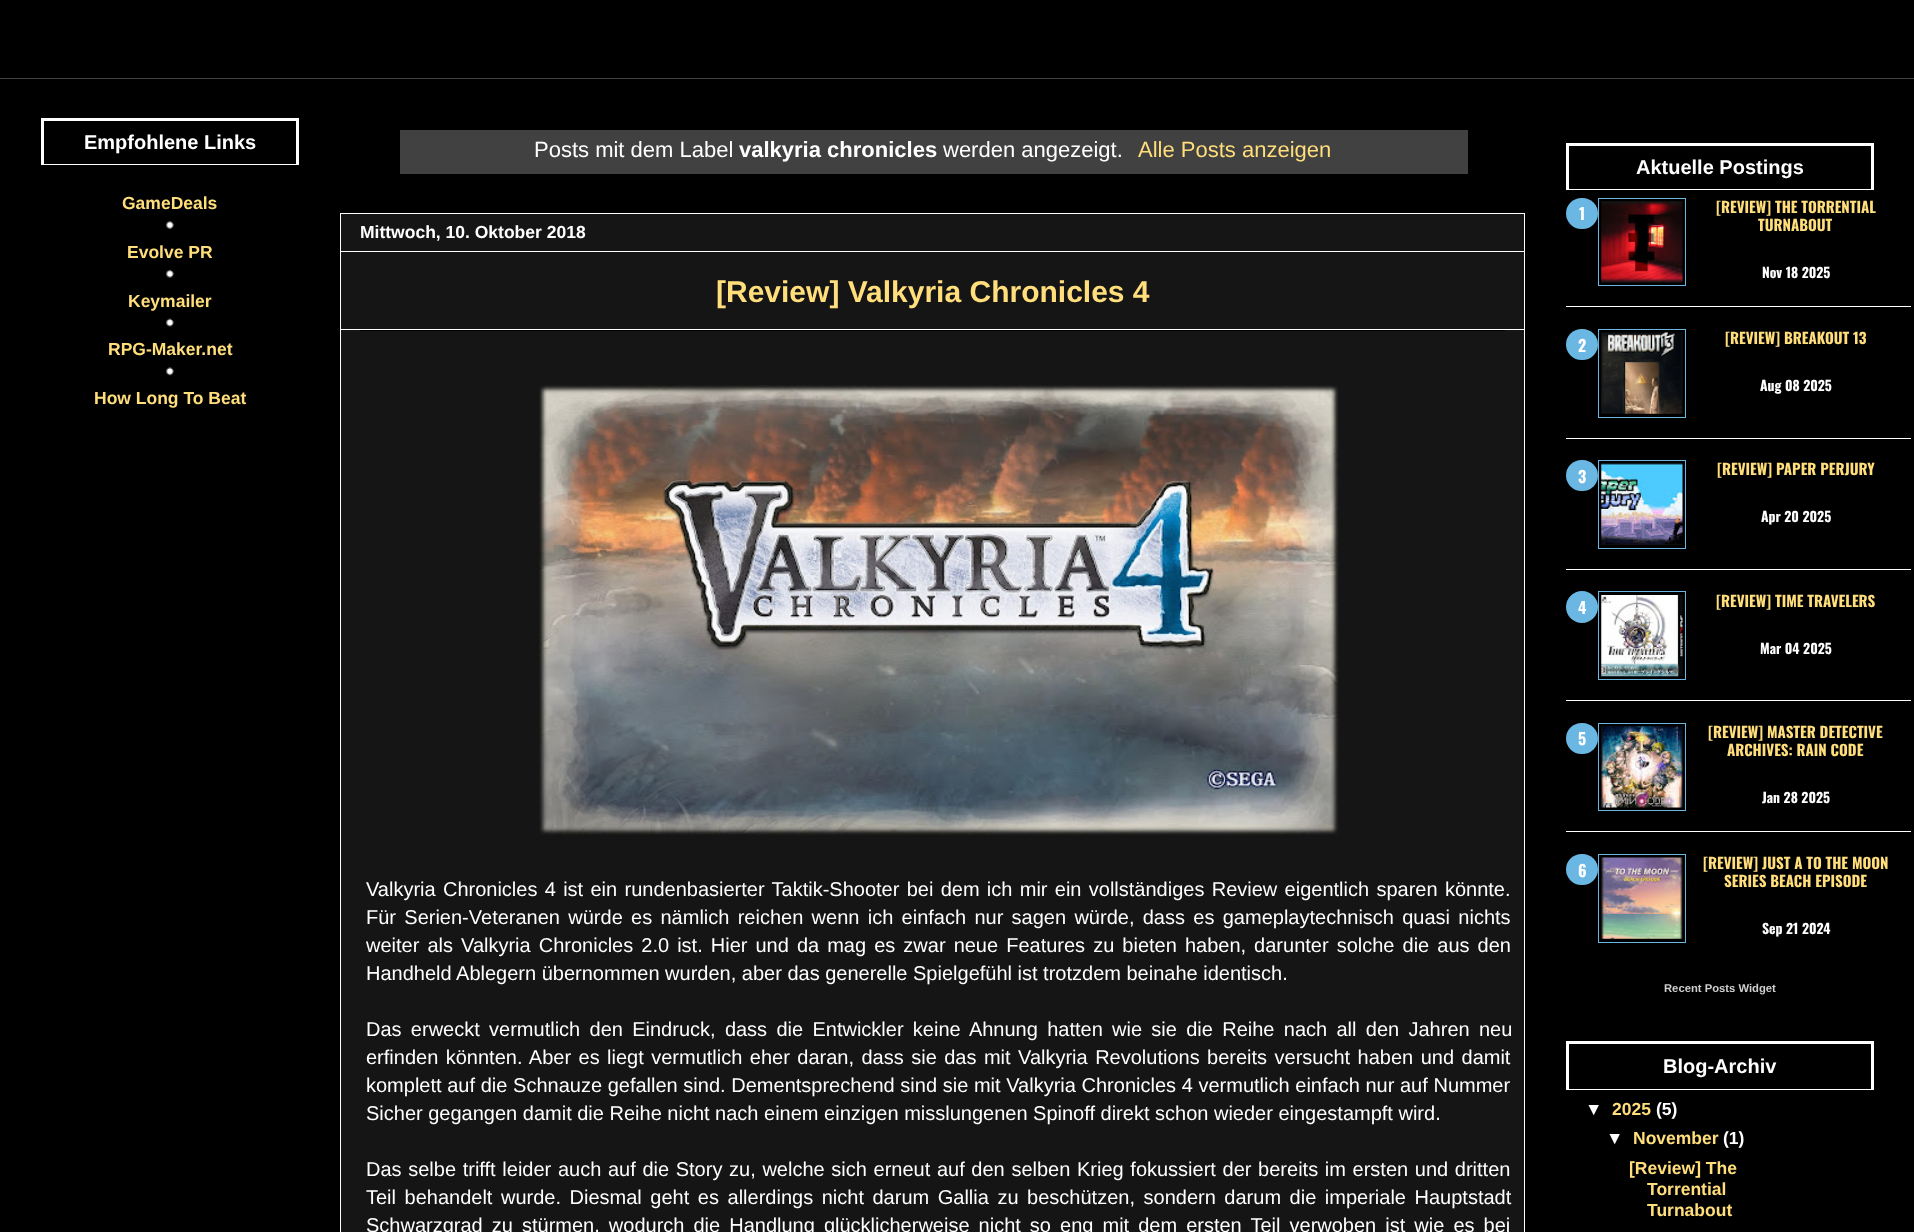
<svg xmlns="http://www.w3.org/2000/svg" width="1914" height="1232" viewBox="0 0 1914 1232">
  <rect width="100%" height="100%" fill="#000000"/>
  <rect x="0" y="78" width="1914" height="1" fill="#444444"/>
  <rect x="41" y="118" width="258" height="3" fill="#ffffff"/>
  <rect x="296" y="118" width="3" height="47" fill="#ffffff"/>
  <rect x="41" y="164" width="258" height="1" fill="#ffffff"/>
  <rect x="41" y="118" width="3" height="47" fill="#ffffff"/>
  <text x="84" y="149" font-family="Liberation Sans" font-size="20" font-weight="bold" fill="#ffffff">Empfohlene Links</text>
  <text x="122" y="209" font-family="Liberation Sans" font-size="17.5" font-weight="bold" fill="#ffde7b">GameDeals</text>
  <image x="166" y="221" width="8" height="8" href="img1.png"/>
  <text x="127" y="258" font-family="Liberation Sans" font-size="17.5" font-weight="bold" fill="#ffde7b">Evolve PR</text>
  <image x="166" y="269" width="8" height="9" href="img2.png"/>
  <text x="128" y="307" font-family="Liberation Sans" font-size="17.5" font-weight="bold" fill="#ffde7b">Keymailer</text>
  <image x="166" y="318" width="8" height="9" href="img3.png"/>
  <text x="108" y="355" font-family="Liberation Sans" font-size="17.5" font-weight="bold" fill="#ffde7b">RPG-Maker.net</text>
  <image x="166" y="367" width="8" height="9" href="img4.png"/>
  <text x="94" y="404" font-family="Liberation Sans" font-size="17.5" font-weight="bold" fill="#ffde7b">How Long To Beat</text>
  <rect x="400" y="130" width="1068" height="44" fill="#414141"/>
  <text x="534" y="157" font-family="Liberation Sans" font-size="22" fill="#ffffff">Posts mit dem Label</text>
  <text x="739" y="157" font-family="Liberation Sans" font-size="22" font-weight="bold" fill="#ffffff">valkyria chronicles</text>
  <text x="943" y="157" font-family="Liberation Sans" font-size="22" fill="#ffffff">werden angezeigt.</text>
  <text x="1138" y="157" font-family="Liberation Sans" font-size="22" fill="#ffde7b">Alle Posts anzeigen</text>
  <rect x="340.5" y="213.5" width="1184" height="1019" fill="#151515" stroke="#ffffff"/>
  <rect x="341" y="251" width="1183" height="1" fill="#ffffff"/>
  <text x="360" y="238" font-family="Liberation Sans" font-size="17.5" font-weight="bold" fill="#ffffff">Mittwoch, 10. Oktober 2018</text>
  <rect x="341" y="329" width="1183" height="1" fill="#ffffff"/>
  <text x="716" y="302" font-family="Liberation Sans" font-size="30" font-weight="bold" fill="#ffde7b">[Review] Valkyria Chronicles 4</text>
  <rect x="360" y="330" width="1145" height="1" fill="#000000"/>
  <image x="539" y="385" width="800" height="450" href="img5.png"/>
  <text x="366" y="896" word-spacing="1.75" font-family="Liberation Sans" font-size="20" fill="#ffffff">Valkyria Chronicles 4 ist ein rundenbasierter Taktik-Shooter bei dem ich mir ein vollständiges Review eigentlich sparen könnte.</text>
  <text x="366" y="924" word-spacing="2.75" font-family="Liberation Sans" font-size="20" fill="#ffffff">Für Serien-Veteranen würde es nämlich reichen wenn ich einfach nur sagen würde, dass es gameplaytechnisch quasi nichts</text>
  <text x="366" y="952" word-spacing="2.5" font-family="Liberation Sans" font-size="20" fill="#ffffff">weiter als Valkyria Chronicles 2.0 ist. Hier und da mag es zwar neue Features zu bieten haben, darunter solche die aus den</text>
  <text x="366" y="980" font-family="Liberation Sans" font-size="20" fill="#ffffff">Handheld Ablegern übernommen wurden, aber das generelle Spielgefühl ist trotzdem beinahe identisch.</text>
  <text x="366" y="1036" word-spacing="3.75" font-family="Liberation Sans" font-size="20" fill="#ffffff">Das erweckt vermutlich den Eindruck, dass die Entwickler keine Ahnung hatten wie sie die Reihe nach all den Jahren neu</text>
  <text x="366" y="1064" word-spacing="1.9" font-family="Liberation Sans" font-size="20" fill="#ffffff">erfinden könnten. Aber es liegt vermutlich eher daran, dass sie das mit Valkyria Revolutions bereits versucht haben und damit</text>
  <text x="366" y="1092" word-spacing="0.1" font-family="Liberation Sans" font-size="20" fill="#ffffff">komplett auf die Schnauze gefallen sind. Dementsprechend sind sie mit Valkyria Chronicles 4 vermutlich einfach nur auf Nummer</text>
  <text x="366" y="1120" font-family="Liberation Sans" font-size="20" fill="#ffffff">Sicher gegangen damit die Reihe nicht nach einem einzigen misslungenen Spinoff direkt schon wieder eingestampft wird.</text>
  <text x="366" y="1176" word-spacing="1.1" font-family="Liberation Sans" font-size="20" fill="#ffffff">Das selbe trifft leider auch auf die Story zu, welche sich erneut auf den selben Krieg fokussiert der bereits im ersten und dritten</text>
  <text x="366" y="1204" word-spacing="3" font-family="Liberation Sans" font-size="20" fill="#ffffff">Teil behandelt wurde. Diesmal geht es allerdings nicht darum Gallia zu beschützen, sondern darum die imperiale Hauptstadt</text>
  <text x="366" y="1232" word-spacing="3.5" font-family="Liberation Sans" font-size="20" fill="#ffffff">Schwarzgrad zu stürmen, wodurch die Handlung glücklicherweise nicht so eng mit dem ersten Teil verwoben ist wie es bei</text>
  <rect x="1566" y="143" width="308" height="3" fill="#ffffff"/>
  <rect x="1871" y="143" width="3" height="47" fill="#ffffff"/>
  <rect x="1566" y="189" width="308" height="1" fill="#ffffff"/>
  <rect x="1566" y="143" width="3" height="47" fill="#ffffff"/>
  <text x="1636" y="174" font-family="Liberation Sans" font-size="20" font-weight="bold" fill="#ffffff">Aktuelle Postings</text>
  <rect x="1566" y="306" width="345" height="1" fill="#ffffff"/>
  <rect x="1566" y="198" width="32" height="31" rx="15.5" fill="#69b7e2"/>
  <text x="1579" y="220" font-family="Oswald" font-size="16" font-weight="bold" fill="#ffffff">1</text>
  <rect x="1598.5" y="198.5" width="87" height="87" fill="none" stroke="#69b7e2"/>
  <image x="1601" y="201" width="82" height="82" href="img6.png"/>
  <text x="1716" y="213" font-family="Oswald" font-size="15" font-weight="bold" fill="#ffde7b">[REVIEW] THE TORRENTIAL</text>
  <text x="1758" y="231" font-family="Oswald" font-size="15" font-weight="bold" fill="#ffde7b">TURNABOUT</text>
  <text x="1762" y="278" font-family="Oswald" font-size="13.75" font-weight="bold" fill="#ffffff">Nov 18 2025</text>
  <rect x="1566" y="438" width="345" height="1" fill="#ffffff"/>
  <rect x="1566" y="329" width="32" height="31" rx="15.5" fill="#69b7e2"/>
  <text x="1578" y="352" font-family="Oswald" font-size="16" font-weight="bold" fill="#ffffff">2</text>
  <rect x="1598.5" y="329.5" width="87" height="88" fill="none" stroke="#69b7e2"/>
  <image x="1601" y="332" width="82" height="82" href="img7.png"/>
  <text x="1725" y="344" font-family="Oswald" font-size="15" font-weight="bold" fill="#ffde7b">[REVIEW] BREAKOUT 13</text>
  <text x="1760" y="391" font-family="Oswald" font-size="13.75" font-weight="bold" fill="#ffffff">Aug 08 2025</text>
  <rect x="1566" y="569" width="345" height="1" fill="#ffffff"/>
  <rect x="1566" y="460" width="32" height="31" rx="15.5" fill="#69b7e2"/>
  <text x="1578" y="483" font-family="Oswald" font-size="16" font-weight="bold" fill="#ffffff">3</text>
  <rect x="1598.5" y="460.5" width="87" height="88" fill="none" stroke="#69b7e2"/>
  <image x="1601" y="463" width="82" height="82" href="img8.png"/>
  <text x="1717" y="475" font-family="Oswald" font-size="15" font-weight="bold" fill="#ffde7b">[REVIEW] PAPER PERJURY</text>
  <text x="1761" y="522" font-family="Oswald" font-size="13.75" font-weight="bold" fill="#ffffff">Apr 20 2025</text>
  <rect x="1566" y="700" width="345" height="1" fill="#ffffff"/>
  <circle cx="1582" cy="607" r="16" fill="#69b7e2"/>
  <text x="1578" y="614" font-family="Oswald" font-size="16" font-weight="bold" fill="#ffffff">4</text>
  <rect x="1598.5" y="591.5" width="87" height="88" fill="none" stroke="#69b7e2"/>
  <image x="1601" y="595" width="82" height="82" href="img9.png"/>
  <text x="1716" y="607" font-family="Oswald" font-size="15" font-weight="bold" fill="#ffde7b">[REVIEW] TIME TRAVELERS</text>
  <text x="1760" y="654" font-family="Oswald" font-size="13.75" font-weight="bold" fill="#ffffff">Mar 04 2025</text>
  <rect x="1566" y="831" width="345" height="1" fill="#ffffff"/>
  <rect x="1566" y="723" width="32" height="31" rx="15.5" fill="#69b7e2"/>
  <text x="1578" y="745" font-family="Oswald" font-size="16" font-weight="bold" fill="#ffffff">5</text>
  <rect x="1598.5" y="723.5" width="87" height="87" fill="none" stroke="#69b7e2"/>
  <image x="1601" y="726" width="82" height="82" href="img10.png"/>
  <text x="1708" y="738" font-family="Oswald" font-size="15" font-weight="bold" fill="#ffde7b">[REVIEW] MASTER DETECTIVE</text>
  <text x="1727" y="756" font-family="Oswald" font-size="15" font-weight="bold" fill="#ffde7b">ARCHIVES: RAIN CODE</text>
  <text x="1762" y="803" font-family="Oswald" font-size="13.75" font-weight="bold" fill="#ffffff">Jan 28 2025</text>
  <rect x="1566" y="854" width="32" height="31" rx="15.5" fill="#69b7e2"/>
  <text x="1578" y="877" font-family="Oswald" font-size="16" font-weight="bold" fill="#ffffff">6</text>
  <rect x="1598.5" y="854.5" width="87" height="88" fill="none" stroke="#69b7e2"/>
  <image x="1601" y="857" width="82" height="82" href="img11.png"/>
  <text x="1703" y="869" font-family="Oswald" font-size="15" font-weight="bold" fill="#ffde7b">[REVIEW] JUST A TO THE MOON</text>
  <text x="1724" y="887" font-family="Oswald" font-size="15" font-weight="bold" fill="#ffde7b">SERIES BEACH EPISODE</text>
  <text x="1762" y="934" font-family="Oswald" font-size="13.75" font-weight="bold" fill="#ffffff">Sep 21 2024</text>
  <text x="1664" y="992" font-family="Liberation Sans" font-size="11.25" font-weight="bold" fill="#cecece">Recent Posts Widget</text>
  <rect x="1566" y="1041" width="308" height="3" fill="#ffffff"/>
  <rect x="1871" y="1041" width="3" height="49" fill="#ffffff"/>
  <rect x="1566" y="1089" width="308" height="1" fill="#ffffff"/>
  <rect x="1566" y="1041" width="3" height="49" fill="#ffffff"/>
  <text x="1663" y="1073" font-family="Liberation Sans" font-size="20" font-weight="bold" fill="#ffffff">Blog-Archiv</text>
  <text x="1585" y="1115" font-family="Liberation Sans" font-size="17.5" font-weight="bold" fill="#ffffff">▼</text>
  <text x="1612" y="1115" font-family="Liberation Sans" font-size="17.5" font-weight="bold" fill="#ffde7b">2025</text>
  <text x="1656" y="1115" font-family="Liberation Sans" font-size="17.5" font-weight="bold" fill="#ffffff">(5)</text>
  <text x="1606" y="1144" font-family="Liberation Sans" font-size="17.5" font-weight="bold" fill="#ffffff">▼</text>
  <text x="1633" y="1144" font-family="Liberation Sans" font-size="17.5" font-weight="bold" fill="#ffde7b">November</text>
  <text x="1723" y="1144" font-family="Liberation Sans" font-size="17.5" font-weight="bold" fill="#ffffff">(1)</text>
  <text x="1629" y="1174" font-family="Liberation Sans" font-size="17.5" font-weight="bold" fill="#ffde7b">[Review] The</text>
  <text x="1647" y="1195" font-family="Liberation Sans" font-size="17.5" font-weight="bold" fill="#ffde7b">Torrential</text>
  <text x="1647" y="1216" font-family="Liberation Sans" font-size="17.5" font-weight="bold" fill="#ffde7b">Turnabout</text>
</svg>
